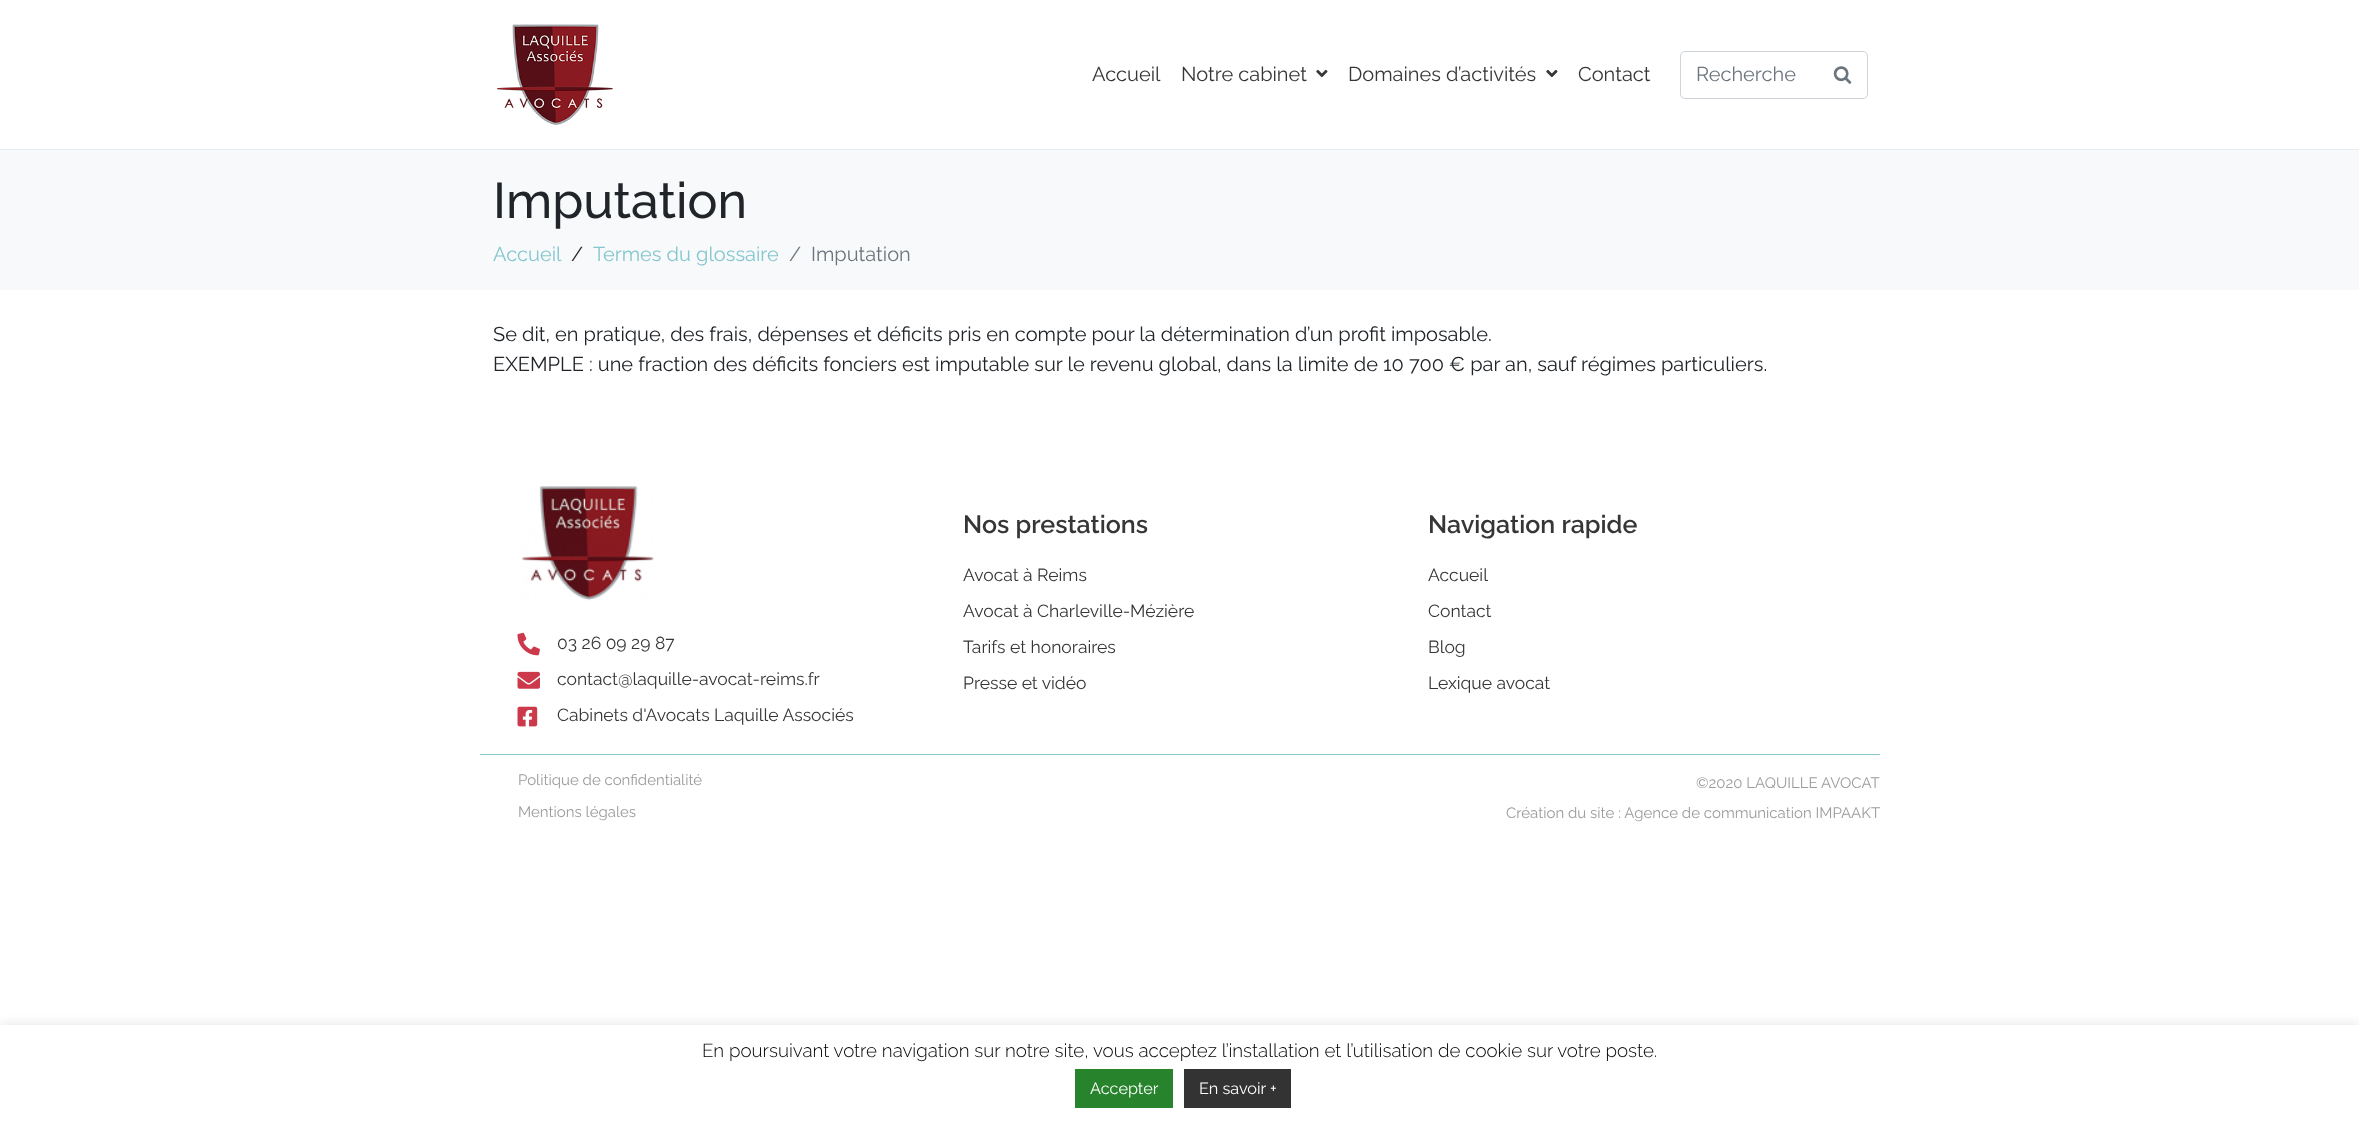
<svg xmlns="http://www.w3.org/2000/svg" width="2359" height="1122" viewBox="0 0 2359 1122">
  <defs>
    <clipPath id="clip1"><rect x="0" y="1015" width="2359" height="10"/></clipPath>
    <filter id="blur1" x="-50%" y="-200%" width="200%" height="500%"><feGaussianBlur stdDeviation="6"/></filter>
  </defs>
  <rect width="100%" height="100%" fill="#ffffff"/>
  <rect x="0" y="149" width="2359" height="1" fill="#e9ecef"/>
  <image x="497" y="24" width="116" height="101" href="img1.png"/>
  <text x="1092" y="81" font-family="Raleway" font-size="20" fill="#363636">Accueil</text>
  <text x="1181" y="81" font-family="Raleway" font-size="20" fill="#363636">Notre cabinet</text>
  <image x="1316" y="69" width="12" height="9" href="img2.png"/>
  <text x="1348" y="81" font-family="Raleway" font-size="20" fill="#363636">Domaines d’activités</text>
  <image x="1546" y="69" width="12" height="9" href="img2.png"/>
  <text x="1578" y="81" font-family="Raleway" font-size="20" fill="#363636">Contact</text>
  <rect x="1680.5" y="51.5" width="187" height="47" rx="4.5" fill="none" stroke="#ced4da"/>
  <text x="1696" y="81" font-family="Raleway" font-size="20" fill="#6c757d">Recherche</text>
  <image x="1833" y="66" width="19" height="18" href="img3.png"/>
  <rect x="0" y="150" width="2359" height="140" fill="#f8f9fa"/>
  <text x="493" y="218" font-family="Raleway" font-size="50" font-weight="500" fill="#212529">Imputation</text>
  <text x="493" y="261" font-family="Raleway" font-size="20" fill="#84c7cf">Accueil</text>
  <text x="571" y="261" font-family="Raleway" font-size="20" fill="#212529">/</text>
  <text x="593" y="261" font-family="Raleway" font-size="20" fill="#84c7cf">Termes du glossaire</text>
  <text x="789" y="261" font-family="Raleway" font-size="20" fill="#6c757d">/</text>
  <text x="811" y="261" font-family="Raleway" font-size="20" fill="#6c757d">Imputation</text>
  <text x="493" y="341" font-family="Raleway" font-size="20" fill="#212529">Se dit, en pratique, des frais, dépenses et déficits pris en compte pour la détermination d’un profit imposable.</text>
  <text x="493" y="371" font-family="Raleway" font-size="20" fill="#212529">EXEMPLE : une fraction des déficits fonciers est imputable sur le revenu global, dans la limite de 10 700 € par an, sauf régimes particuliers.</text>
  <image x="522" y="486" width="132" height="115" href="img4.png"/>
  <image x="517" y="632" width="23" height="24" href="img5.png"/>
  <text x="557" y="649" font-family="Raleway" font-size="17.5" fill="#363636">03 26 09 29 87</text>
  <image x="517" y="671" width="23" height="18" href="img6.png"/>
  <text x="557" y="685" font-family="Raleway" font-size="17.5" fill="#363636">contact@laquille-avocat-reims.fr</text>
  <image x="517" y="706" width="21" height="21" href="img7.png"/>
  <text x="557" y="721" font-family="Raleway" font-size="17.5" fill="#363636">Cabinets d'Avocats Laquille Associés</text>
  <text x="963" y="533" font-family="Raleway" font-size="25" font-weight="600" fill="#363636">Nos prestations</text>
  <text x="963" y="581" font-family="Raleway" font-size="17.5" fill="#363636">Avocat à Reims</text>
  <text x="963" y="617" font-family="Raleway" font-size="17.5" fill="#363636">Avocat à Charleville-Mézière</text>
  <text x="963" y="653" font-family="Raleway" font-size="17.5" fill="#363636">Tarifs et honoraires</text>
  <text x="963" y="689" font-family="Raleway" font-size="17.5" fill="#363636">Presse et vidéo</text>
  <text x="1428" y="533" font-family="Raleway" font-size="25" font-weight="600" fill="#363636">Navigation rapide</text>
  <text x="1428" y="581" font-family="Raleway" font-size="17.5" fill="#363636">Accueil</text>
  <text x="1428" y="617" font-family="Raleway" font-size="17.5" fill="#363636">Contact</text>
  <text x="1428" y="653" font-family="Raleway" font-size="17.5" fill="#363636">Blog</text>
  <text x="1428" y="689" font-family="Raleway" font-size="17.5" fill="#363636">Lexique avocat</text>
  <rect x="480" y="754" width="1400" height="1" fill="#84c7cf"/>
  <text x="518" y="785" font-family="Raleway" font-size="15" fill="#9c9c9c">Politique de confidentialité</text>
  <text x="518" y="817" font-family="Raleway" font-size="15" fill="#9c9c9c">Mentions légales</text>
  <text x="1696" y="788" font-family="Raleway" font-size="15" fill="#9c9c9c">©2020 LAQUILLE AVOCAT</text>
  <text x="1506" y="818" font-family="Raleway" font-size="15" fill="#9c9c9c">Création du site : Agence de communication IMPAAKT</text>
  <g clip-path="url(#clip1)">
    <rect x="0" y="1024" width="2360" height="97" fill="#acabab" fill-opacity="0.3" filter="url(#blur1)"/>
  </g>
  <text x="702" y="1057" font-family="Raleway" font-size="18.75" font-weight="300" fill="#000000">En poursuivant votre navigation sur notre site, vous acceptez l’installation et l’utilisation de cookie sur votre poste.</text>
  <rect x="1075" y="1069" width="98" height="39" fill="#27842c"/>
  <text x="1090" y="1094" font-family="Raleway" font-size="16.25" fill="#ffffff">Accepter</text>
  <rect x="1184" y="1069" width="107" height="39" fill="#333333"/>
  <text x="1199" y="1094" font-family="Raleway" font-size="16.25" fill="#ffffff">En savoir +</text>
</svg>
